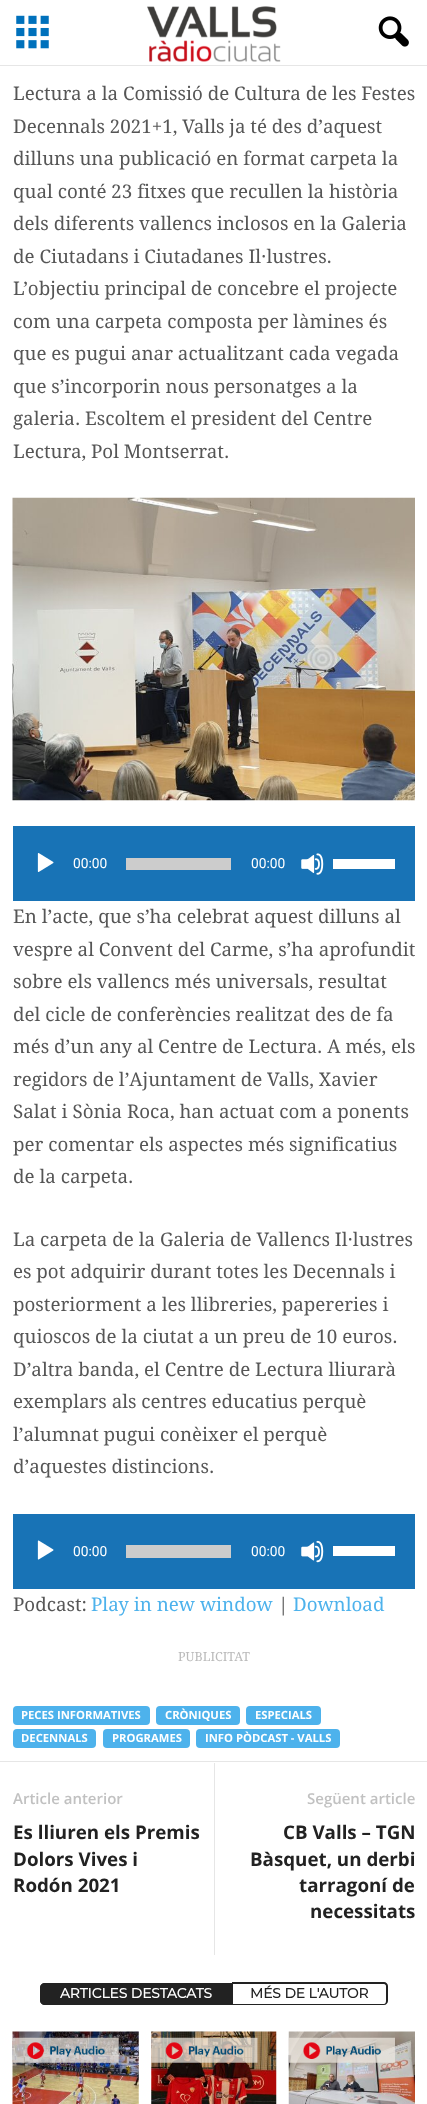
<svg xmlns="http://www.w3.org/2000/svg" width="427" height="2104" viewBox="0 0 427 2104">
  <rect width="100%" height="100%" fill="#ffffff"/>
  <rect x="0" y="65" width="427" height="1" fill="#e6e6e6"/>
  <image x="16" y="15" width="33" height="34" href="img1.png"/>
  <image x="147" y="6" width="134" height="56" href="img2.png"/>
  <image x="378" y="16" width="31" height="31" href="img3.png"/>
  <text x="13" y="100" font-family="Droid Serif" font-size="18.75" fill="#565656">Lectura a la Comissió de Cultura de les Festes</text>
  <text x="13" y="133" font-family="Droid Serif" font-size="18.75" fill="#565656">Decennals 2021+1, Valls ja té des d’aquest</text>
  <text x="13" y="165" font-family="Droid Serif" font-size="18.75" fill="#565656">dilluns una publicació en format carpeta la</text>
  <text x="13" y="198" font-family="Droid Serif" font-size="18.75" fill="#565656">qual conté 23 fitxes que recullen la història</text>
  <text x="13" y="230" font-family="Droid Serif" font-size="18.75" fill="#565656">dels diferents vallencs inclosos en la Galeria</text>
  <text x="13" y="263" font-family="Droid Serif" font-size="18.75" fill="#565656">de Ciutadans i Ciutadanes Il·lustres.</text>
  <text x="13" y="295" font-family="Droid Serif" font-size="18.75" fill="#565656">L’objectiu principal de concebre el projecte</text>
  <text x="13" y="328" font-family="Droid Serif" font-size="18.75" fill="#565656">com una carpeta composta per làmines és</text>
  <text x="13" y="360" font-family="Droid Serif" font-size="18.75" fill="#565656">que es pugui anar actualitzant cada vegada</text>
  <text x="13" y="393" font-family="Droid Serif" font-size="18.75" fill="#565656">que s’incorporin nous personatges a la</text>
  <text x="13" y="425" font-family="Droid Serif" font-size="18.75" fill="#565656">galeria. Escoltem el president del Centre</text>
  <text x="13" y="458" font-family="Droid Serif" font-size="18.75" fill="#565656">Lectura, Pol Montserrat.</text>
  <image x="12" y="497" width="403" height="304" href="img4.png"/>
  <rect x="13" y="826" width="402" height="75" fill="#1873b6"/>
  <image x="37" y="853" width="17" height="19" href="img5.png"/>
  <text x="73" y="868" font-family="Roboto" font-size="13.75" fill="#ffffff">00:00</text>
  <rect x="126" y="858" width="105" height="12" fill="#cccccc"/>
  <text x="251" y="868" font-family="Roboto" font-size="13.75" fill="#ffffff">00:00</text>
  <image x="301" y="853" width="23" height="22" href="img6.png"/>
  <rect x="333" y="859" width="62" height="10" fill="#ffffff"/>
  <text x="13" y="923" font-family="Droid Serif" font-size="18.75" fill="#565656">En l’acte, que s’ha celebrat aquest dilluns al</text>
  <text x="13" y="956" font-family="Droid Serif" font-size="18.75" fill="#565656">vespre al Convent del Carme, s’ha aprofundit</text>
  <text x="13" y="988" font-family="Droid Serif" font-size="18.75" fill="#565656">sobre els vallencs més universals, resultat</text>
  <text x="13" y="1021" font-family="Droid Serif" font-size="18.75" fill="#565656">del cicle de conferències realitzat des de fa</text>
  <text x="13" y="1053" font-family="Droid Serif" font-size="18.75" fill="#565656">més d’un any al Centre de Lectura. A més, els</text>
  <text x="13" y="1086" font-family="Droid Serif" font-size="18.75" fill="#565656">regidors de l’Ajuntament de Valls, Xavier</text>
  <text x="13" y="1118" font-family="Droid Serif" font-size="18.75" fill="#565656">Salat i Sònia Roca, han actuat com a ponents</text>
  <text x="13" y="1151" font-family="Droid Serif" font-size="18.75" fill="#565656">per comentar els aspectes més significatius</text>
  <text x="13" y="1183" font-family="Droid Serif" font-size="18.75" fill="#565656">de la carpeta.</text>
  <text x="13" y="1246" font-family="Droid Serif" font-size="18.75" fill="#565656">La carpeta de la Galeria de Vallencs Il·lustres</text>
  <text x="13" y="1278" font-family="Droid Serif" font-size="18.75" fill="#565656">es pot adquirir durant totes les Decennals i</text>
  <text x="13" y="1311" font-family="Droid Serif" font-size="18.75" fill="#565656">posteriorment a les llibreries, papereries i</text>
  <text x="13" y="1343" font-family="Droid Serif" font-size="18.75" fill="#565656">quioscos de la ciutat a un preu de 10 euros.</text>
  <text x="13" y="1376" font-family="Droid Serif" font-size="18.75" fill="#565656">D’altra banda, el Centre de Lectura lliurarà</text>
  <text x="13" y="1408" font-family="Droid Serif" font-size="18.75" fill="#565656">exemplars als centres educatius perquè</text>
  <text x="13" y="1441" font-family="Droid Serif" font-size="18.75" fill="#565656">l’alumnat pugui conèixer el perquè</text>
  <text x="13" y="1473" font-family="Droid Serif" font-size="18.75" fill="#565656">d’aquestes distincions.</text>
  <rect x="13" y="1514" width="402" height="75" fill="#1873b6"/>
  <image x="37" y="1540" width="17" height="20" href="img7.png"/>
  <text x="73" y="1556" font-family="Roboto" font-size="13.75" fill="#ffffff">00:00</text>
  <rect x="126" y="1545" width="105" height="13" fill="#cccccc"/>
  <text x="251" y="1556" font-family="Roboto" font-size="13.75" fill="#ffffff">00:00</text>
  <image x="301" y="1540" width="23" height="23" href="img8.png"/>
  <rect x="333" y="1546" width="62" height="10" fill="#ffffff"/>
  <text x="13" y="1611" font-family="Droid Serif" font-size="18.75" fill="#565656">Podcast:</text>
  <text x="91" y="1611" font-family="Droid Serif" font-size="18.75" fill="#4db2ec">Play in new window</text>
  <text x="278" y="1611" font-family="Droid Serif" font-size="18.75" fill="#565656">|</text>
  <text x="293" y="1611" font-family="Droid Serif" font-size="18.75" fill="#4db2ec">Download</text>
  <text x="178" y="1661" font-family="Droid Serif" font-size="12.5" fill="#bbbbbb">PUBLICITAT</text>
  <rect x="13" y="1706" width="137" height="19" rx="4" fill="#4db2ec"/>
  <text x="21" y="1719" font-family="Open Sans" font-size="11.25" font-weight="bold" fill="#ffffff">PECES INFORMATIVES</text>
  <rect x="156" y="1706" width="84" height="19" rx="4" fill="#4db2ec"/>
  <text x="165" y="1719" font-family="Open Sans" font-size="11.25" font-weight="bold" fill="#ffffff">CRÒNIQUES</text>
  <rect x="246" y="1706" width="75" height="19" rx="4" fill="#4db2ec"/>
  <text x="255" y="1719" font-family="Open Sans" font-size="11.25" font-weight="bold" fill="#ffffff">ESPECIALS</text>
  <rect x="13" y="1729" width="83" height="19" rx="4" fill="#4db2ec"/>
  <text x="21" y="1742" font-family="Open Sans" font-size="11.25" font-weight="bold" fill="#ffffff">DECENNALS</text>
  <rect x="103" y="1729" width="87" height="19" rx="4" fill="#4db2ec"/>
  <text x="112" y="1742" font-family="Open Sans" font-size="11.25" font-weight="bold" fill="#ffffff">PROGRAMES</text>
  <rect x="196" y="1729" width="144" height="19" rx="4" fill="#4db2ec"/>
  <text x="205" y="1742" font-family="Open Sans" font-size="11.25" font-weight="bold" fill="#ffffff">INFO PÒDCAST - VALLS</text>
  <rect x="0" y="1761" width="427" height="1" fill="#e6e6e6"/>
  <text x="13" y="1804" font-family="Open Sans" font-size="15" font-weight="600" fill="#c1c1c1">Article anterior</text>
  <text x="13" y="1839" font-family="Open Sans" font-size="18.75" font-weight="bold" fill="#222222">Es lliuren els Premis</text>
  <text x="13" y="1866" font-family="Open Sans" font-size="18.75" font-weight="bold" fill="#222222">Dolors Vives i</text>
  <text x="13" y="1892" font-family="Open Sans" font-size="18.75" font-weight="bold" fill="#222222">Rodón 2021</text>
  <rect x="214" y="1763" width="1" height="192" fill="#e6e6e6"/>
  <text x="307" y="1804" font-family="Open Sans" font-size="15" font-weight="600" fill="#c1c1c1">Següent article</text>
  <text x="283" y="1839" font-family="Open Sans" font-size="18.75" font-weight="bold" fill="#222222">CB Valls – TGN</text>
  <text x="250" y="1866" font-family="Open Sans" font-size="18.75" font-weight="bold" fill="#222222">Bàsquet, un derbi</text>
  <text x="299" y="1892" font-family="Open Sans" font-size="18.75" font-weight="bold" fill="#222222">tarragoní de</text>
  <text x="310" y="1918" font-family="Open Sans" font-size="18.75" font-weight="bold" fill="#222222">necessitats</text>
  <path d="M44 1983.5H232.5V2004.5H44C42 2004.5 40.5 2003 40.5 2001V1987C40.5 1985 42 1983.5 44 1983.5Z" fill="#222222" stroke="#222222"/>
  <text x="60" y="1998" font-family="Montserrat" font-size="13.75" font-weight="bold" fill="#ffffff">ARTICLES DESTACATS</text>
  <path d="M232 1982H384C386 1982 388 1984 388 1986V2001C388 2003 386 2005 384 2005H232ZM232 1984H384C385 1984 386 1985 386 1986V2001C386 2003 385 2004 384 2004H232Z" fill="#222222" fill-rule="evenodd"/>
  <text x="250" y="1998" font-family="Montserrat" font-size="13.75" font-weight="bold" fill="#222222">MÉS DE L'AUTOR</text>
  <image x="12" y="2031" width="127" height="73" href="img9.png"/>
  <image x="12" y="2037" width="107" height="26" href="img10.png"/>
  <image x="151" y="2031" width="126" height="73" href="img11.png"/>
  <image x="151" y="2037" width="107" height="26" href="img12.png"/>
  <image x="288" y="2031" width="127" height="73" href="img13.png"/>
  <image x="288" y="2037" width="107" height="26" href="img14.png"/>
</svg>
